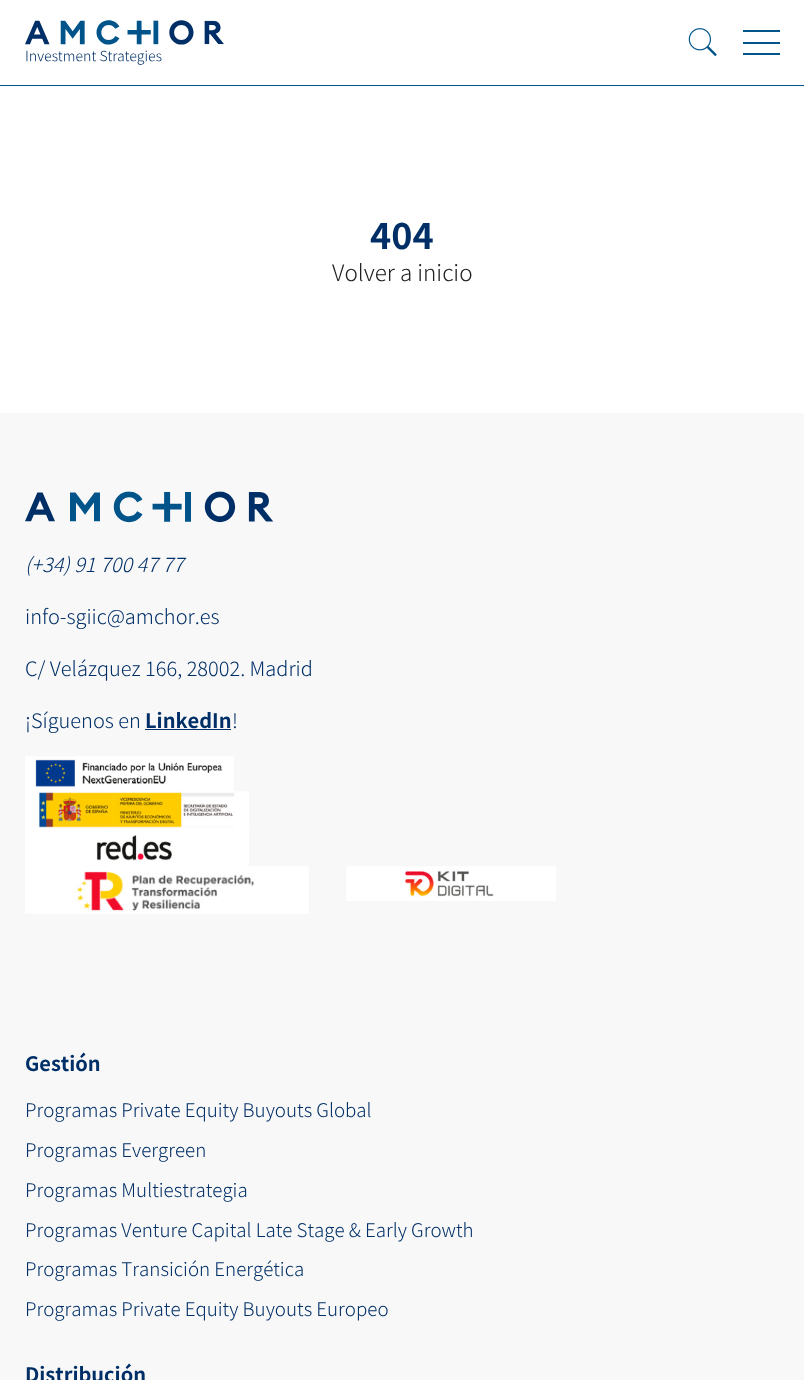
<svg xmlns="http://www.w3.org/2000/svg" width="804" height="1380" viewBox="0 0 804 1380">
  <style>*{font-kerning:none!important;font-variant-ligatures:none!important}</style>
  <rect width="100%" height="100%" fill="#ffffff"/>
  <rect x="0" y="85" width="804" height="1" fill="#00548a"/>
  <image x="25" y="20" width="199" height="45" href="img1.png"/>
  <image x="688" y="28" width="29" height="29" href="img2.png"/>
  <rect x="743" y="30" width="37" height="2" fill="#00548a"/>
  <rect x="743" y="42" width="37" height="2" fill="#00548a"/>
  <rect x="743" y="53" width="37" height="2" fill="#00548a"/>
  <text x="370" y="249" font-family="Noto Sans HK" font-size="36" font-weight="bold" fill="#002f67">404</text>
  <text x="332" y="281" font-family="Noto Sans HK" font-size="22.5" font-weight="300" fill="#212121">Volver a inicio</text>
  <rect x="0" y="413" width="804" height="967" fill="#f8f8f8"/>
  <image x="25" y="491" width="249" height="32" href="img3.png"/>
  <text x="25" y="572" font-family="Noto Sans HK" font-size="20" font-weight="300" font-style="italic" fill="#002f67">(+34) 91 700 47 77</text>
  <text x="25" y="624" font-family="Noto Sans HK" font-size="20" font-weight="300" fill="#002f67">info-sgiic@amchor.es</text>
  <text x="25" y="676" font-family="Noto Sans HK" font-size="20" font-weight="300" fill="#002f67">C/ Velázquez 166, 28002. Madrid</text>
  <text x="25" y="728" font-family="Noto Sans HK" font-size="20" font-weight="300" fill="#002f67">¡Síguenos en</text>
  <text x="145" y="728" font-family="Noto Sans HK" font-size="20" font-weight="bold" fill="#002f67">LinkedIn</text>
  <rect x="145" y="729" width="86" height="1" fill="#002f67"/>
  <text x="232" y="728" font-family="Noto Sans HK" font-size="20" font-weight="300" fill="#002f67">!</text>
  <image x="25" y="756" width="209" height="35" href="img4.png"/>
  <image x="25" y="791" width="224" height="38" href="img5.png"/>
  <image x="25" y="829" width="224" height="37" href="img6.png"/>
  <image x="25" y="866" width="284" height="48" href="img7.png"/>
  <image x="346" y="866" width="210" height="35" href="img8.png"/>
  <text x="25" y="1071" font-family="Noto Sans HK" font-size="20" font-weight="bold" fill="#002f67">Gestión</text>
  <text x="25" y="1117" font-family="Noto Sans HK" font-size="18.75" font-weight="300" fill="#002f67">Programas Private Equity Buyouts Global</text>
  <text x="25" y="1157" font-family="Noto Sans HK" font-size="18.75" font-weight="300" fill="#002f67">Programas Evergreen</text>
  <text x="25" y="1197" font-family="Noto Sans HK" font-size="18.75" font-weight="300" fill="#002f67">Programas Multiestrategia</text>
  <text x="25" y="1237" font-family="Noto Sans HK" font-size="18.75" font-weight="300" fill="#002f67">Programas Venture Capital Late Stage &amp; Early Growth</text>
  <text x="25" y="1276" font-family="Noto Sans HK" font-size="18.75" font-weight="300" fill="#002f67">Programas Transición Energética</text>
  <text x="25" y="1316" font-family="Noto Sans HK" font-size="18.75" font-weight="300" fill="#002f67">Programas Private Equity Buyouts Europeo</text>
  <text x="25" y="1382" font-family="Noto Sans HK" font-size="20" font-weight="bold" fill="#002f67">Distribución</text>
</svg>
